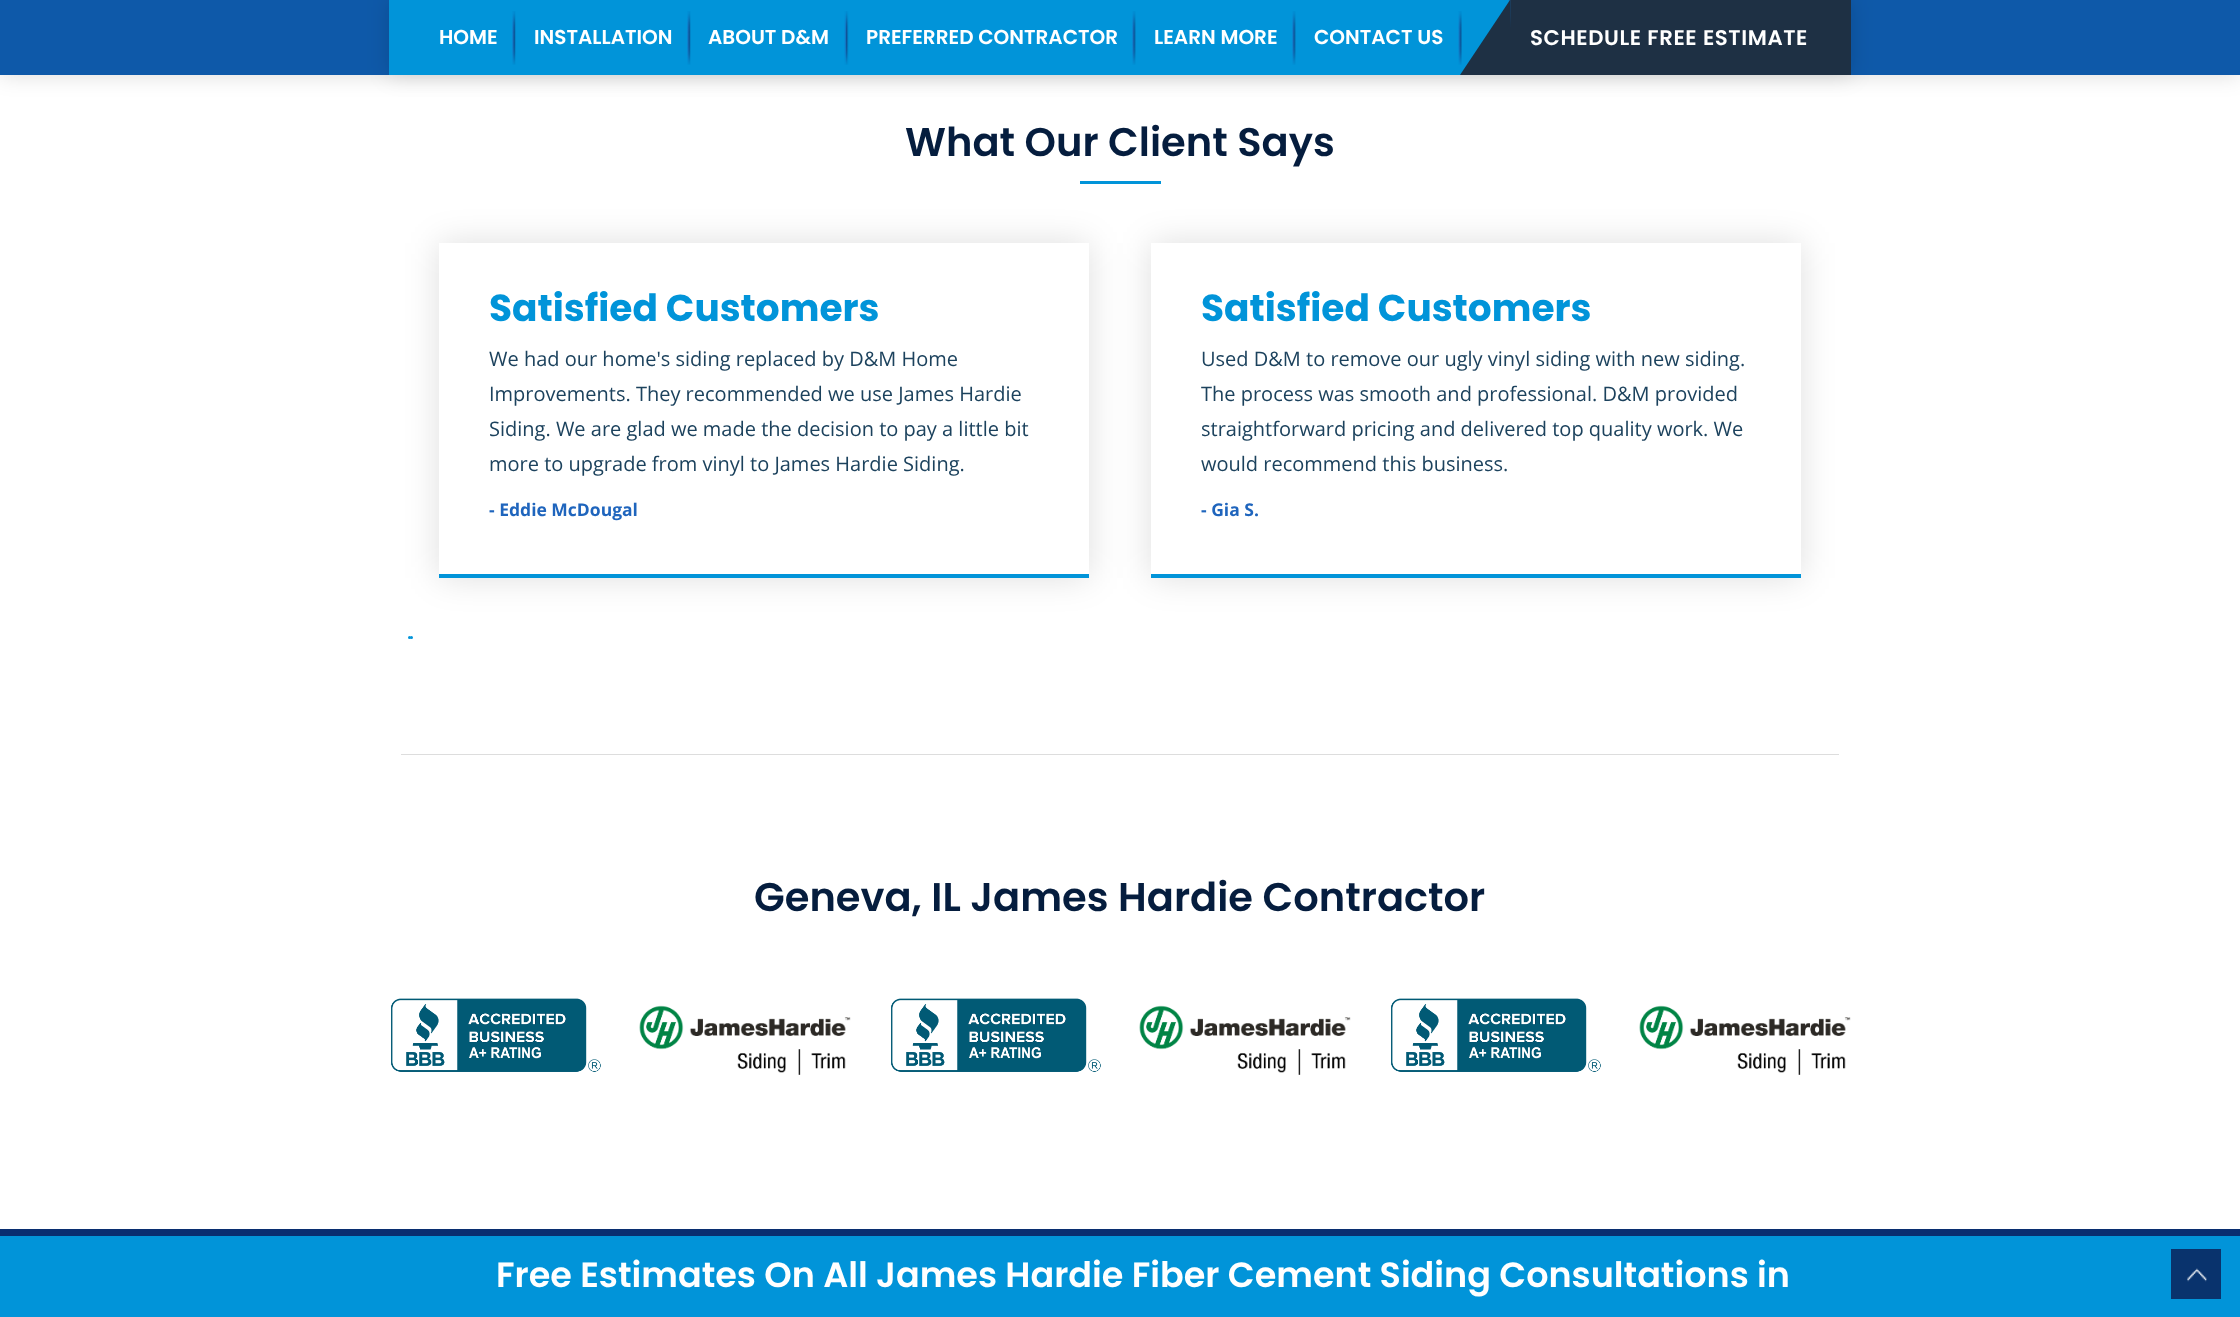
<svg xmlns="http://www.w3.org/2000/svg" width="2240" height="1317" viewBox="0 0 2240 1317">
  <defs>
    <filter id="blur1" x="-50%" y="-200%" width="200%" height="500%"><feGaussianBlur stdDeviation="11"/></filter>
    <filter id="blur2" x="-50%" y="-200%" width="200%" height="500%"><feGaussianBlur stdDeviation="17"/></filter>
  </defs>
  <rect width="100%" height="100%" fill="#ffffff"/>
  <rect x="0" y="0" width="2240" height="75" fill="#000000" fill-opacity="0.14" filter="url(#blur1)"/>
  <rect x="0" y="0" width="2240" height="75" fill="#0e59a9"/>
  <rect x="389" y="0" width="1462" height="75" fill="#000000" fill-opacity="0.14" filter="url(#blur1)"/>
  <rect x="389" y="0" width="1121" height="75" fill="#0194d9"/>
  <text x="439" y="44" font-family="Poppins" font-size="20" font-weight="600" fill="#ffffff">HOME</text>
  <image x="512" y="11" width="4" height="54" href="img1.png"/>
  <text x="534" y="44" font-family="Poppins" font-size="20" font-weight="600" fill="#ffffff">INSTALLATION</text>
  <image x="687" y="11" width="4" height="54" href="img1.png"/>
  <text x="708" y="44" font-family="Poppins" font-size="20" font-weight="600" fill="#ffffff">ABOUT D&amp;M</text>
  <image x="844" y="11" width="5" height="54" href="img2.png"/>
  <text x="866" y="44" font-family="Poppins" font-size="20" font-weight="600" fill="#ffffff">PREFERRED CONTRACTOR</text>
  <image x="1132" y="11" width="4" height="54" href="img3.png"/>
  <text x="1154" y="44" font-family="Poppins" font-size="20" font-weight="600" fill="#ffffff">LEARN MORE</text>
  <image x="1292" y="11" width="4" height="54" href="img4.png"/>
  <text x="1314" y="44" font-family="Poppins" font-size="20" font-weight="600" fill="#ffffff">CONTACT US</text>
  <image x="1458" y="11" width="4" height="54" href="img5.png"/>
  <rect x="1510" y="0" width="341" height="75" fill="#1e3044"/>
  <image x="1508" y="0" width="3" height="27" href="img6.png"/>
  <path d="M1510 75H1460L1510 0Z" fill="#1e3044"/>
  <text x="1530" y="45" font-family="Poppins" font-size="21.25" font-weight="600" letter-spacing="0.6" fill="#ffffff">SCHEDULE FREE ESTIMATE</text>
  <text x="905" y="156" font-family="Poppins" font-size="40" font-weight="600" fill="#051d3e">What Our Client Says</text>
  <rect x="1080" y="181" width="81" height="3" fill="#0194d9"/>
  <rect x="439" y="243" width="650" height="335" fill="#000000" fill-opacity="0.13" filter="url(#blur2)"/>
  <rect x="439" y="243" width="650" height="331" fill="#ffffff"/>
  <rect x="439" y="574" width="650" height="4" fill="#0194d9"/>
  <text x="489" y="321" font-family="Poppins" font-size="37.5" font-weight="bold" fill="#0194d9">Satisfied Customers</text>
  <text x="489" y="366" font-family="Open Sans" font-size="20" fill="#1c425d">We had our home's siding replaced by D&amp;M Home</text>
  <text x="489" y="401" font-family="Open Sans" font-size="20" fill="#1c425d">Improvements. They recommended we use James Hardie</text>
  <text x="489" y="436" font-family="Open Sans" font-size="20" fill="#1c425d">Siding. We are glad we made the decision to pay a little bit</text>
  <text x="489" y="471" font-family="Open Sans" font-size="20" fill="#1c425d">more to upgrade from vinyl to James Hardie Siding.</text>
  <text x="489" y="516" font-family="Open Sans" font-size="17.5" font-weight="bold" fill="#1f65bd">- Eddie McDougal</text>
  <rect x="1151" y="243" width="650" height="335" fill="#000000" fill-opacity="0.13" filter="url(#blur2)"/>
  <rect x="1151" y="243" width="650" height="331" fill="#ffffff"/>
  <rect x="1151" y="574" width="650" height="4" fill="#0194d9"/>
  <text x="1201" y="321" font-family="Poppins" font-size="37.5" font-weight="bold" fill="#0194d9">Satisfied Customers</text>
  <text x="1201" y="366" font-family="Open Sans" font-size="20" fill="#1c425d">Used D&amp;M to remove our ugly vinyl siding with new siding.</text>
  <text x="1201" y="401" font-family="Open Sans" font-size="20" fill="#1c425d">The process was smooth and professional. D&amp;M provided</text>
  <text x="1201" y="436" font-family="Open Sans" font-size="20" fill="#1c425d">straightforward pricing and delivered top quality work. We</text>
  <text x="1201" y="471" font-family="Open Sans" font-size="20" fill="#1c425d">would recommend this business.</text>
  <text x="1201" y="516" font-family="Open Sans" font-size="17.5" font-weight="bold" fill="#1f65bd">- Gia S.</text>
  <circle cx="409.5" cy="637.5" r="1.5" fill="#0194d9"/>
  <circle cx="411.5" cy="637.5" r="1.5" fill="#0194d9"/>
  <rect x="401" y="754" width="1438" height="1" fill="#dddddd"/>
  <text x="754" y="911" font-family="Poppins" font-size="40" font-weight="600" fill="#051d3e">Geneva, IL James Hardie Contractor</text>
  <image x="391" y="998" width="210" height="74" href="img7.png"/>
  <image x="639" y="1005" width="212" height="70" href="img8.png"/>
  <image x="891" y="998" width="210" height="74" href="img9.png"/>
  <image x="1139" y="1005" width="212" height="70" href="img8.png"/>
  <image x="1391" y="998" width="210" height="74" href="img9.png"/>
  <image x="1639" y="1005" width="212" height="70" href="img8.png"/>
  <rect x="0" y="1236" width="2240" height="81" fill="#0194d9"/>
  <rect x="0" y="1229" width="2240" height="7" fill="#092e70"/>
  <text x="496" y="1287" font-family="Poppins" font-size="35" font-weight="600" fill="#ffffff">Free Estimates On All James Hardie Fiber Cement Siding Consultations in</text>
  <rect x="2171" y="1249" width="50" height="50" fill="#09336d"/>
  <image x="2187" y="1268" width="20" height="14" href="img10.png"/>
</svg>
